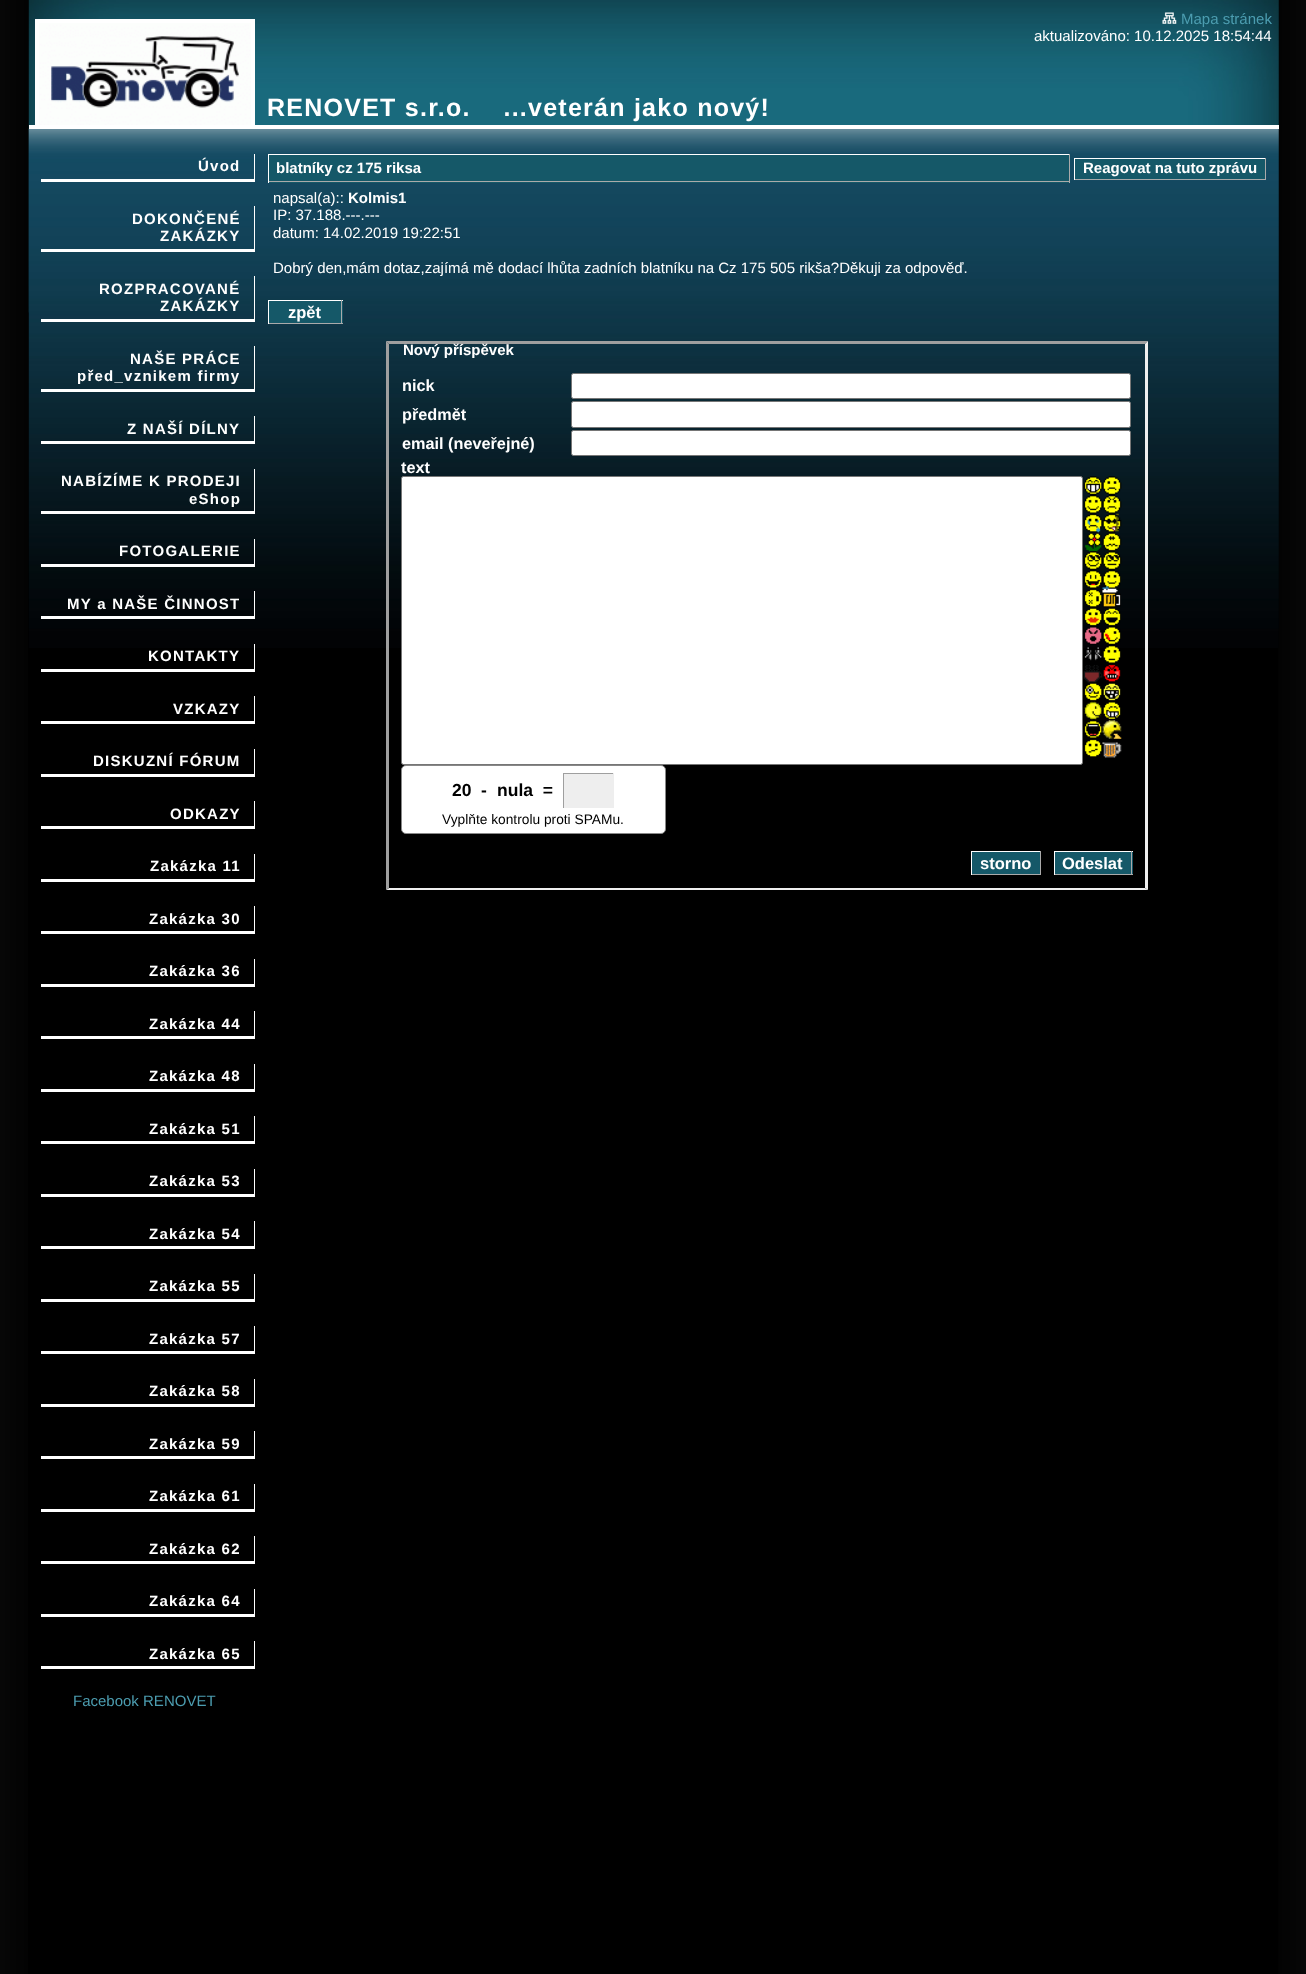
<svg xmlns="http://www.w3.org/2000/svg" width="1306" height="1974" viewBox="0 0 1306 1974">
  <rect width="100%" height="100%" fill="#ffffff"/>
  <image x="0" y="0" width="1306" height="1974" href="img1.png"/>
  <image x="28" y="0" width="1251" height="313" href="img2.png"/>
  <rect x="35" y="19" width="220" height="4" fill="#ffffff"/>
  <rect x="35" y="19" width="4" height="106" fill="#ffffff"/>
  <image x="39" y="23" width="212" height="102" href="img3.png"/>
  <rect x="251" y="19" width="4" height="106" fill="#ffffff"/>
  <image x="1162" y="12" width="15" height="12" href="img4.png"/>
  <text x="1181" y="24" font-family="Liberation Sans" font-size="15" fill="#4c9db0">Mapa stránek</text>
  <text x="1034" y="41" font-family="Liberation Sans" font-size="15" fill="#ffffff">aktualizováno: 10.12.2025 18:54:44</text>
  <text x="267" y="116" font-family="Liberation Sans" font-size="25" font-weight="bold" letter-spacing="1.25" fill="#ffffff" xml:space="preserve">RENOVET s.r.o.    ...veterán jako nový!</text>
  <image x="28" y="128" width="227" height="520" href="img5.png"/>
  <rect x="29" y="125" width="1250" height="4" fill="#ffffff"/>
  <rect x="254" y="154" width="1" height="27" fill="#ffffff"/>
  <rect x="41" y="179" width="214" height="3" fill="#ffffff"/>
  <text x="198" y="171" font-family="Liberation Sans" font-size="15" font-weight="bold" letter-spacing="1.25" fill="#ffffff">Úvod</text>
  <rect x="254" y="206" width="1" height="45" fill="#ffffff"/>
  <rect x="41" y="249" width="214" height="3" fill="#ffffff"/>
  <text x="132" y="224" font-family="Liberation Sans" font-size="15" font-weight="bold" letter-spacing="1.25" fill="#ffffff">DOKONČENÉ</text>
  <text x="160" y="241" font-family="Liberation Sans" font-size="15" font-weight="bold" letter-spacing="1.25" fill="#ffffff">ZAKÁZKY</text>
  <rect x="254" y="276" width="1" height="45" fill="#ffffff"/>
  <rect x="41" y="319" width="214" height="3" fill="#ffffff"/>
  <text x="99" y="294" font-family="Liberation Sans" font-size="15" font-weight="bold" letter-spacing="1.25" fill="#ffffff">ROZPRACOVANÉ</text>
  <text x="160" y="311" font-family="Liberation Sans" font-size="15" font-weight="bold" letter-spacing="1.25" fill="#ffffff">ZAKÁZKY</text>
  <rect x="254" y="346" width="1" height="45" fill="#ffffff"/>
  <rect x="41" y="389" width="214" height="3" fill="#ffffff"/>
  <text x="130" y="364" font-family="Liberation Sans" font-size="15" font-weight="bold" letter-spacing="1.25" fill="#ffffff">NAŠE PRÁCE</text>
  <text x="77" y="381" font-family="Liberation Sans" font-size="15" font-weight="bold" letter-spacing="1.25" fill="#ffffff">před_vznikem firmy</text>
  <rect x="254" y="416" width="1" height="28" fill="#ffffff"/>
  <rect x="41" y="441" width="214" height="3" fill="#ffffff"/>
  <text x="127" y="434" font-family="Liberation Sans" font-size="15" font-weight="bold" letter-spacing="1.25" fill="#ffffff">Z NAŠÍ DÍLNY</text>
  <rect x="254" y="469" width="1" height="45" fill="#ffffff"/>
  <rect x="41" y="511" width="214" height="3" fill="#ffffff"/>
  <text x="61" y="486" font-family="Liberation Sans" font-size="15" font-weight="bold" letter-spacing="1.25" fill="#ffffff">NABÍZÍME K PRODEJI</text>
  <text x="189" y="504" font-family="Liberation Sans" font-size="15" font-weight="bold" letter-spacing="1.25" fill="#ffffff">eShop</text>
  <rect x="254" y="539" width="1" height="27" fill="#ffffff"/>
  <rect x="41" y="564" width="214" height="3" fill="#ffffff"/>
  <text x="119" y="556" font-family="Liberation Sans" font-size="15" font-weight="bold" letter-spacing="1.25" fill="#ffffff">FOTOGALERIE</text>
  <rect x="254" y="591" width="1" height="28" fill="#ffffff"/>
  <rect x="41" y="616" width="214" height="3" fill="#ffffff"/>
  <text x="67" y="609" font-family="Liberation Sans" font-size="15" font-weight="bold" letter-spacing="1.25" fill="#ffffff">MY a NAŠE ČINNOST</text>
  <rect x="254" y="644" width="1" height="27" fill="#ffffff"/>
  <rect x="41" y="669" width="214" height="3" fill="#ffffff"/>
  <text x="148" y="661" font-family="Liberation Sans" font-size="15" font-weight="bold" letter-spacing="1.25" fill="#ffffff">KONTAKTY</text>
  <rect x="254" y="696" width="1" height="28" fill="#ffffff"/>
  <rect x="41" y="721" width="214" height="3" fill="#ffffff"/>
  <text x="173" y="714" font-family="Liberation Sans" font-size="15" font-weight="bold" letter-spacing="1.25" fill="#ffffff">VZKAZY</text>
  <rect x="254" y="749" width="1" height="27" fill="#ffffff"/>
  <rect x="41" y="774" width="214" height="3" fill="#ffffff"/>
  <text x="93" y="766" font-family="Liberation Sans" font-size="15" font-weight="bold" letter-spacing="1.25" fill="#ffffff">DISKUZNÍ FÓRUM</text>
  <rect x="254" y="801" width="1" height="28" fill="#ffffff"/>
  <rect x="41" y="826" width="214" height="3" fill="#ffffff"/>
  <text x="170" y="819" font-family="Liberation Sans" font-size="15" font-weight="bold" letter-spacing="1.25" fill="#ffffff">ODKAZY</text>
  <rect x="254" y="854" width="1" height="27" fill="#ffffff"/>
  <rect x="41" y="879" width="214" height="3" fill="#ffffff"/>
  <text x="150" y="871" font-family="Liberation Sans" font-size="15" font-weight="bold" letter-spacing="1.25" fill="#ffffff">Zakázka 11</text>
  <rect x="254" y="906" width="1" height="28" fill="#ffffff"/>
  <rect x="41" y="931" width="214" height="3" fill="#ffffff"/>
  <text x="149" y="924" font-family="Liberation Sans" font-size="15" font-weight="bold" letter-spacing="1.25" fill="#ffffff">Zakázka 30</text>
  <rect x="254" y="959" width="1" height="27" fill="#ffffff"/>
  <rect x="41" y="984" width="214" height="3" fill="#ffffff"/>
  <text x="149" y="976" font-family="Liberation Sans" font-size="15" font-weight="bold" letter-spacing="1.25" fill="#ffffff">Zakázka 36</text>
  <rect x="254" y="1011" width="1" height="28" fill="#ffffff"/>
  <rect x="41" y="1036" width="214" height="3" fill="#ffffff"/>
  <text x="149" y="1029" font-family="Liberation Sans" font-size="15" font-weight="bold" letter-spacing="1.25" fill="#ffffff">Zakázka 44</text>
  <rect x="254" y="1064" width="1" height="27" fill="#ffffff"/>
  <rect x="41" y="1089" width="214" height="3" fill="#ffffff"/>
  <text x="149" y="1081" font-family="Liberation Sans" font-size="15" font-weight="bold" letter-spacing="1.25" fill="#ffffff">Zakázka 48</text>
  <rect x="254" y="1116" width="1" height="28" fill="#ffffff"/>
  <rect x="41" y="1141" width="214" height="3" fill="#ffffff"/>
  <text x="149" y="1134" font-family="Liberation Sans" font-size="15" font-weight="bold" letter-spacing="1.25" fill="#ffffff">Zakázka 51</text>
  <rect x="254" y="1169" width="1" height="27" fill="#ffffff"/>
  <rect x="41" y="1194" width="214" height="3" fill="#ffffff"/>
  <text x="149" y="1186" font-family="Liberation Sans" font-size="15" font-weight="bold" letter-spacing="1.25" fill="#ffffff">Zakázka 53</text>
  <rect x="254" y="1221" width="1" height="28" fill="#ffffff"/>
  <rect x="41" y="1246" width="214" height="3" fill="#ffffff"/>
  <text x="149" y="1239" font-family="Liberation Sans" font-size="15" font-weight="bold" letter-spacing="1.25" fill="#ffffff">Zakázka 54</text>
  <rect x="254" y="1274" width="1" height="27" fill="#ffffff"/>
  <rect x="41" y="1299" width="214" height="3" fill="#ffffff"/>
  <text x="149" y="1291" font-family="Liberation Sans" font-size="15" font-weight="bold" letter-spacing="1.25" fill="#ffffff">Zakázka 55</text>
  <rect x="254" y="1326" width="1" height="28" fill="#ffffff"/>
  <rect x="41" y="1351" width="214" height="3" fill="#ffffff"/>
  <text x="149" y="1344" font-family="Liberation Sans" font-size="15" font-weight="bold" letter-spacing="1.25" fill="#ffffff">Zakázka 57</text>
  <rect x="254" y="1379" width="1" height="27" fill="#ffffff"/>
  <rect x="41" y="1404" width="214" height="3" fill="#ffffff"/>
  <text x="149" y="1396" font-family="Liberation Sans" font-size="15" font-weight="bold" letter-spacing="1.25" fill="#ffffff">Zakázka 58</text>
  <rect x="254" y="1431" width="1" height="28" fill="#ffffff"/>
  <rect x="41" y="1456" width="214" height="3" fill="#ffffff"/>
  <text x="149" y="1449" font-family="Liberation Sans" font-size="15" font-weight="bold" letter-spacing="1.25" fill="#ffffff">Zakázka 59</text>
  <rect x="254" y="1484" width="1" height="27" fill="#ffffff"/>
  <rect x="41" y="1509" width="214" height="3" fill="#ffffff"/>
  <text x="149" y="1501" font-family="Liberation Sans" font-size="15" font-weight="bold" letter-spacing="1.25" fill="#ffffff">Zakázka 61</text>
  <rect x="254" y="1536" width="1" height="28" fill="#ffffff"/>
  <rect x="41" y="1561" width="214" height="3" fill="#ffffff"/>
  <text x="149" y="1554" font-family="Liberation Sans" font-size="15" font-weight="bold" letter-spacing="1.25" fill="#ffffff">Zakázka 62</text>
  <rect x="254" y="1589" width="1" height="27" fill="#ffffff"/>
  <rect x="41" y="1614" width="214" height="3" fill="#ffffff"/>
  <text x="149" y="1606" font-family="Liberation Sans" font-size="15" font-weight="bold" letter-spacing="1.25" fill="#ffffff">Zakázka 64</text>
  <rect x="254" y="1641" width="1" height="28" fill="#ffffff"/>
  <rect x="41" y="1666" width="214" height="3" fill="#ffffff"/>
  <text x="149" y="1659" font-family="Liberation Sans" font-size="15" font-weight="bold" letter-spacing="1.25" fill="#ffffff">Zakázka 65</text>
  <text x="73" y="1706" font-family="Liberation Sans" font-size="15" fill="#4c9db0">Facebook RENOVET</text>
  <rect x="255" y="129" width="1024" height="184" fill="#000000"/>
  <image x="255" y="129" width="1024" height="519" href="img6.png"/>
  <rect x="269" y="155" width="800" height="28" fill="#155868"/>
  <rect x="268" y="154" width="802" height="1" fill="#ffffff"/>
  <rect x="1069" y="154" width="1" height="29" fill="#aaaaaa"/>
  <rect x="268" y="181" width="802" height="1" fill="#aaaaaa"/>
  <rect x="268" y="154" width="1" height="29" fill="#ffffff"/>
  <text x="276" y="173" font-family="Liberation Sans" font-size="15" font-weight="bold" fill="#ffffff">blatníky cz 175 riksa</text>
  <rect x="1075" y="159" width="190" height="20" fill="#155868"/>
  <rect x="1074" y="158" width="192" height="1" fill="#ffffff"/>
  <rect x="1265" y="158" width="1" height="22" fill="#aaaaaa"/>
  <rect x="1074" y="179" width="192" height="1" fill="#aaaaaa"/>
  <rect x="1074" y="158" width="1" height="22" fill="#ffffff"/>
  <text x="1083" y="173" font-family="Liberation Sans" font-size="15" font-weight="bold" fill="#ffffff">Reagovat na tuto zprávu</text>
  <text x="273" y="203" font-family="Liberation Sans" font-size="15" fill="#ffffff">napsal(a)::</text>
  <text x="348" y="203" font-family="Liberation Sans" font-size="15" font-weight="bold" fill="#ffffff">Kolmis1</text>
  <text x="273" y="220" font-family="Liberation Sans" font-size="15" fill="#ffffff">IP: 37.188.---.---</text>
  <text x="273" y="238" font-family="Liberation Sans" font-size="15" fill="#ffffff">datum: 14.02.2019 19:22:51</text>
  <text x="273" y="273" font-family="Liberation Sans" font-size="15" fill="#ffffff">Dobrý den,mám dotaz,zajímá mě dodací lhůta zadních blatníku na Cz 175 505 rikša?Děkuji za odpověď.</text>
  <rect x="269" y="301" width="74" height="22" fill="#155868"/>
  <rect x="268" y="300" width="75" height="1" fill="#ffffff"/>
  <rect x="341" y="300" width="1" height="24" fill="#aaaaaa"/>
  <rect x="268" y="323" width="75" height="1" fill="#aaaaaa"/>
  <rect x="268" y="300" width="1" height="24" fill="#ffffff"/>
  <text x="288" y="318" font-family="Liberation Sans" font-size="16.5" font-weight="bold" fill="#ffffff">zpět</text>
  <path d="M386 341H1148L1145 344H389Z" fill="#9f9f9f"/>
  <path d="M1148 341V890L1145 888V344Z" fill="#efefef"/>
  <path d="M1148 890H386L389 888H1145Z" fill="#efefef"/>
  <path d="M386 890V341L389 344V888Z" fill="#9f9f9f"/>
  <text x="403" y="355" font-family="Liberation Sans" font-size="15" font-weight="bold" fill="#ffffff">Nový příspěvek</text>
  <text x="402" y="391" font-family="Liberation Sans" font-size="16.25" font-weight="bold" fill="#ffffff">nick</text>
  <rect x="571.5" y="373.5" width="559" height="25" rx="2" fill="#ffffff" stroke="#767676"/>
  <text x="402" y="420" font-family="Liberation Sans" font-size="16.25" font-weight="bold" fill="#ffffff">předmět</text>
  <rect x="571.5" y="401.5" width="559" height="26" rx="2" fill="#ffffff" stroke="#767676"/>
  <text x="402" y="449" font-family="Liberation Sans" font-size="16.25" font-weight="bold" fill="#ffffff">email (neveřejné)</text>
  <rect x="571.5" y="430.5" width="559" height="25" rx="2" fill="#ffffff" stroke="#767676"/>
  <text x="401" y="473" font-family="Liberation Sans" font-size="16.25" font-weight="bold" fill="#ffffff">text</text>
  <rect x="401.5" y="476.5" width="681" height="288" rx="2" fill="#ffffff" stroke="#767676"/>
  <image x="1083" y="476" width="20" height="19" href="img7.png"/>
  <image x="1102" y="476" width="20" height="19" href="img8.png"/>
  <image x="1083" y="495" width="20" height="19" href="img9.png"/>
  <image x="1102" y="495" width="20" height="19" href="img10.png"/>
  <image x="1083" y="514" width="20" height="19" href="img11.png"/>
  <image x="1102" y="513" width="20" height="20" href="img12.png"/>
  <image x="1084" y="532" width="18" height="20" href="img13.png"/>
  <image x="1102" y="532" width="20" height="20" href="img14.png"/>
  <image x="1083" y="551" width="20" height="19" href="img15.png"/>
  <image x="1102" y="551" width="20" height="19" href="img16.png"/>
  <image x="1084" y="570" width="19" height="19" href="img17.png"/>
  <image x="1102" y="570" width="19" height="19" href="img18.png"/>
  <image x="1084" y="589" width="19" height="19" href="img19.png"/>
  <image x="1102" y="588" width="19" height="20" href="img20.png"/>
  <image x="1084" y="608" width="19" height="18" href="img21.png"/>
  <image x="1103" y="608" width="18" height="18" href="img22.png"/>
  <image x="1084" y="626" width="18" height="19" href="img23.png"/>
  <image x="1103" y="626" width="18" height="19" href="img24.png"/>
  <image x="1084" y="647" width="18" height="14" href="img25.png"/>
  <image x="1103" y="645" width="18" height="18" href="img26.png"/>
  <image x="1083" y="665" width="20" height="18" href="img27.png"/>
  <image x="1102" y="664" width="19" height="18" href="img28.png"/>
  <image x="1084" y="682" width="18" height="19" href="img29.png"/>
  <image x="1103" y="683" width="18" height="18" href="img30.png"/>
  <image x="1083" y="701" width="20" height="19" href="img31.png"/>
  <image x="1102" y="702" width="19" height="17" href="img32.png"/>
  <image x="1084" y="721" width="18" height="17" href="img33.png"/>
  <image x="1102" y="720" width="20" height="19" href="img34.png"/>
  <image x="1084" y="739" width="18" height="18" href="img35.png"/>
  <image x="1102" y="742" width="20" height="16" href="img36.png"/>
  <rect x="401.5" y="765.5" width="264" height="68" rx="4.5" fill="#ffffff" stroke="#888888"/>
  <text x="452" y="796" font-family="Liberation Sans" font-size="17.5" font-weight="bold" fill="#000000">20</text>
  <text x="481" y="796" font-family="Liberation Sans" font-size="17.5" font-weight="bold" fill="#000000">-</text>
  <text x="497" y="796" font-family="Liberation Sans" font-size="17.5" font-weight="bold" fill="#000000" xml:space="preserve">nula  =</text>
  <rect x="564" y="774" width="49" height="34" fill="#eeeeee"/>
  <rect x="563" y="773" width="51" height="1" fill="#9f9f9f"/>
  <rect x="613" y="773" width="1" height="35" fill="#eeeeee"/>
  <rect x="563" y="773" width="1" height="35" fill="#9f9f9f"/>
  <text x="442" y="824" font-family="Liberation Sans" font-size="13.75" fill="#000000">Vyplňte kontrolu proti SPAMu.</text>
  <rect x="1055" y="852" width="78" height="22" fill="#155868"/>
  <rect x="1054" y="851" width="79" height="1" fill="#ffffff"/>
  <rect x="1131" y="851" width="1" height="24" fill="#aaaaaa"/>
  <rect x="1054" y="874" width="79" height="1" fill="#aaaaaa"/>
  <rect x="1054" y="851" width="1" height="24" fill="#ffffff"/>
  <text x="1062" y="869" font-family="Liberation Sans" font-size="16.5" font-weight="bold" fill="#ffffff">Odeslat</text>
  <rect x="972" y="852" width="68" height="22" fill="#155868"/>
  <rect x="971" y="851" width="70" height="1" fill="#ffffff"/>
  <rect x="1040" y="851" width="1" height="24" fill="#aaaaaa"/>
  <rect x="971" y="874" width="70" height="1" fill="#aaaaaa"/>
  <rect x="971" y="851" width="1" height="24" fill="#ffffff"/>
  <text x="980" y="869" font-family="Liberation Sans" font-size="16.5" font-weight="bold" fill="#ffffff">storno</text>
</svg>
